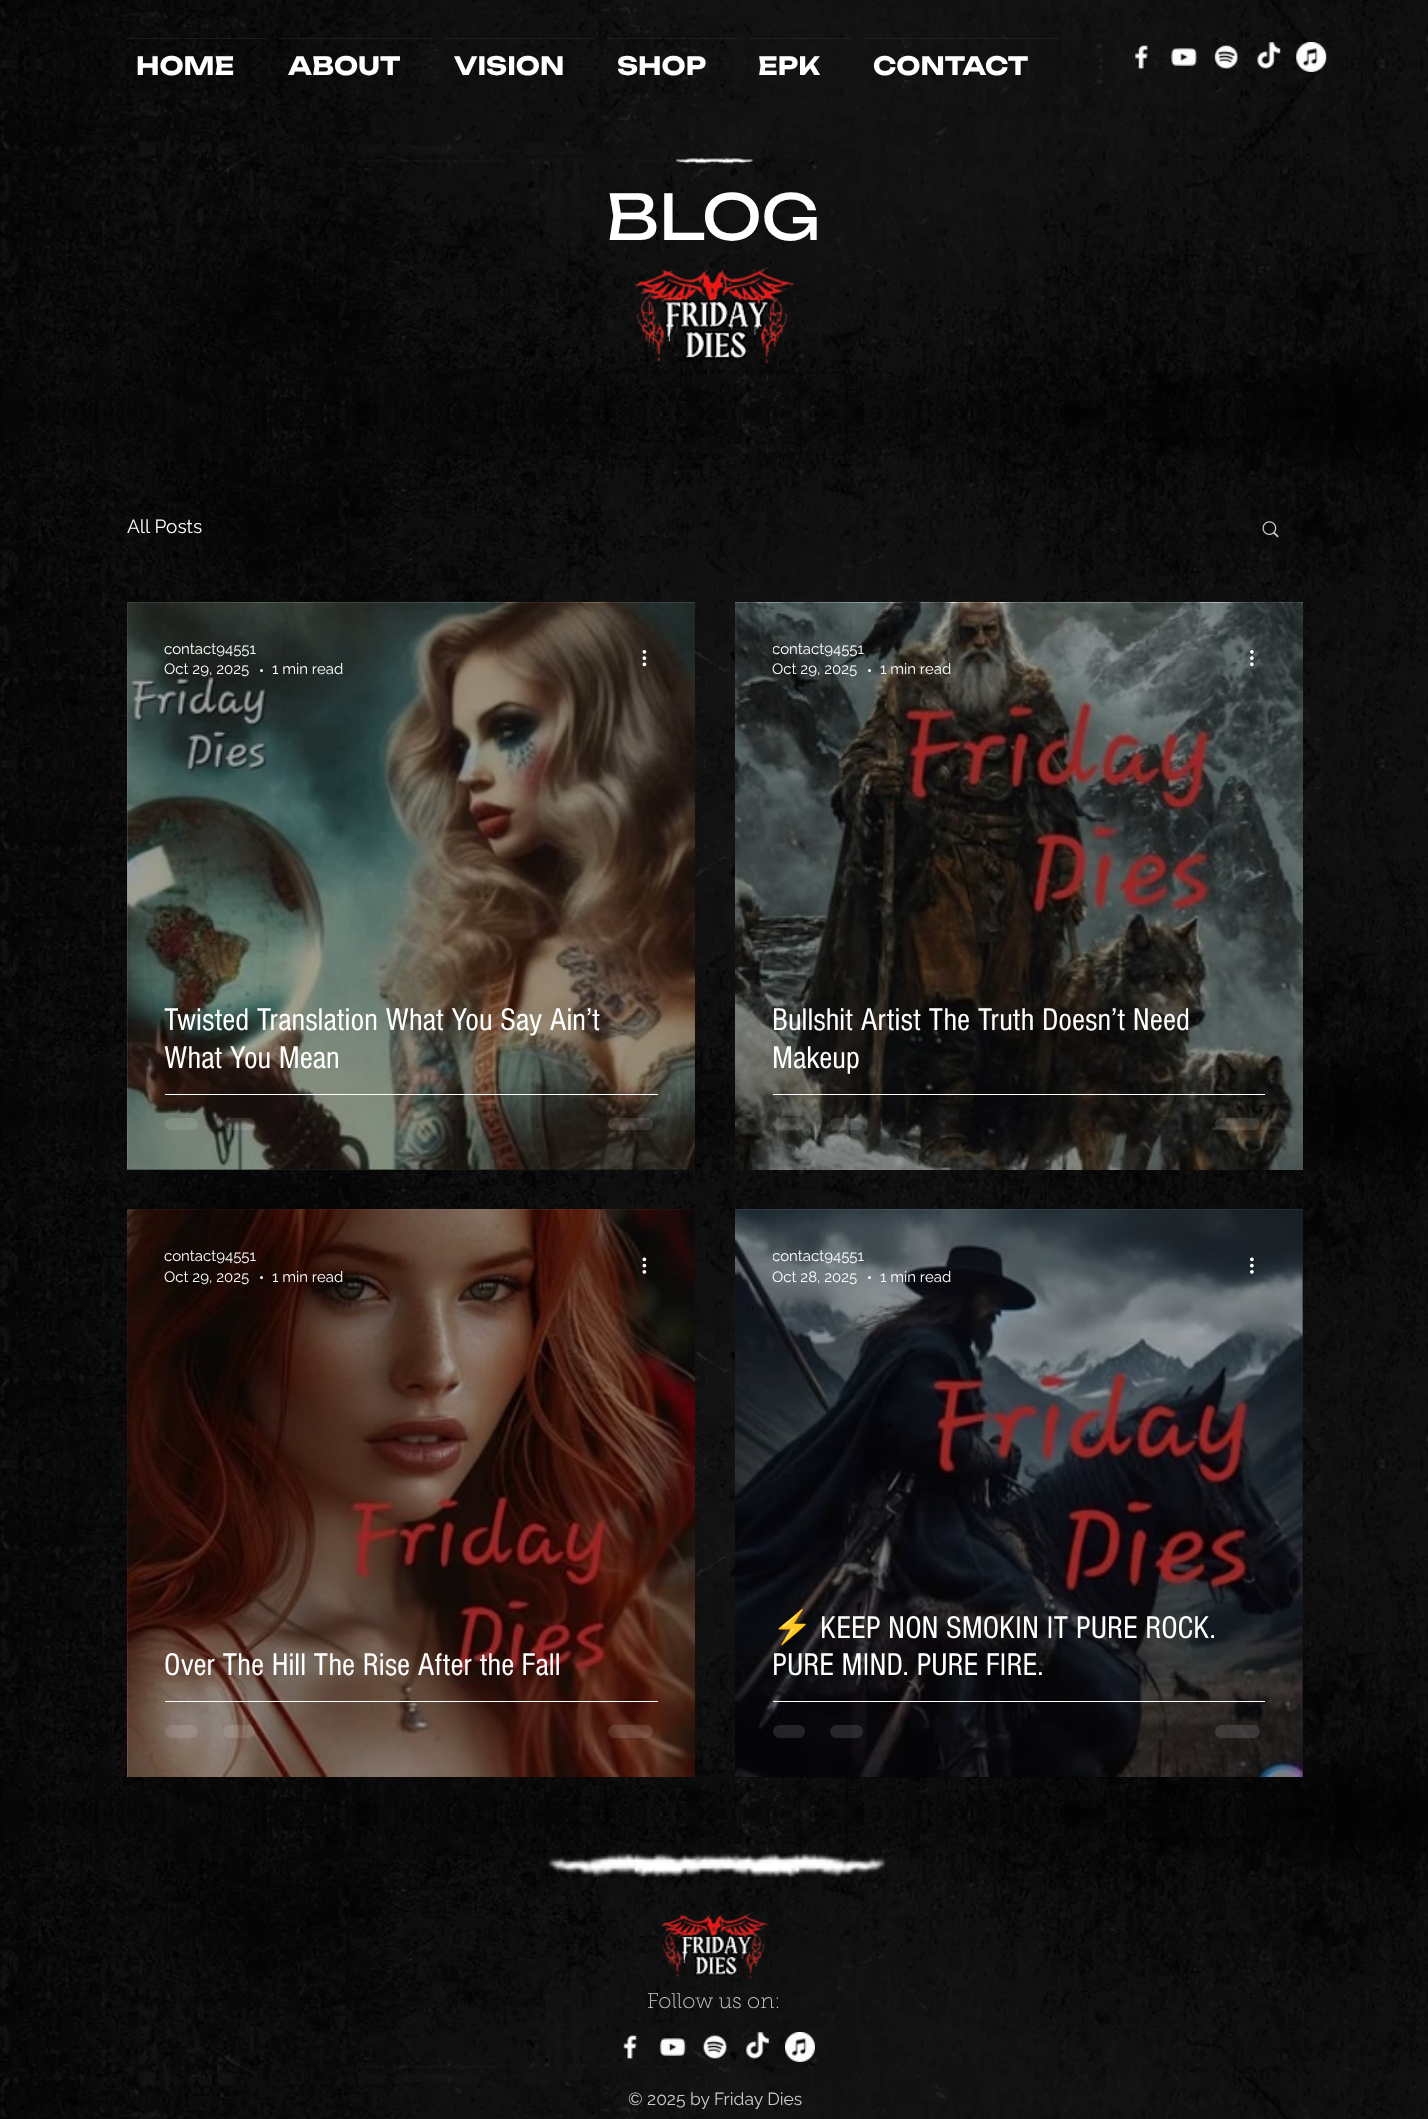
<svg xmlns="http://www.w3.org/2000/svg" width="1428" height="2119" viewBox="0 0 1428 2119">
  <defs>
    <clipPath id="clip1"><rect x="773" y="640" width="91" height="18"/></clipPath>
    <clipPath id="clip2"><rect x="773" y="1248" width="91" height="17"/></clipPath>
    <clipPath id="clip3"><rect x="773" y="1608" width="492" height="76"/></clipPath>
  </defs>
  <rect width="100%" height="100%" fill="#ffffff"/>
  <image x="0" y="0" width="1428" height="2119" href="img1.png"/>
  <rect x="126" y="38" width="140" height="1" fill="#2f2e2e" fill-opacity="0.5"/>
  <text x="136" y="75" font-family="Unbounded" font-size="25" font-weight="bold" fill="#ffffff">HOME</text>
  <rect x="279" y="38" width="154" height="1" fill="#2f2e2e" fill-opacity="0.5"/>
  <text x="288" y="75" font-family="Unbounded" font-size="25" font-weight="bold" fill="#ffffff">ABOUT</text>
  <rect x="445" y="38" width="150" height="1" fill="#2f2e2e" fill-opacity="0.5"/>
  <text x="454" y="75" font-family="Unbounded" font-size="25" font-weight="bold" fill="#ffffff">VISION</text>
  <rect x="608" y="38" width="128" height="1" fill="#2f2e2e" fill-opacity="0.5"/>
  <text x="617" y="75" font-family="Unbounded" font-size="25" font-weight="bold" fill="#ffffff">SHOP</text>
  <rect x="749" y="38" width="102" height="1" fill="#2f2e2e" fill-opacity="0.5"/>
  <text x="758" y="75" font-family="Unbounded" font-size="25" font-weight="bold" fill="#ffffff">EPK</text>
  <rect x="864" y="38" width="195" height="1" fill="#2f2e2e" fill-opacity="0.5"/>
  <text x="873" y="75" font-family="Unbounded" font-size="25" font-weight="bold" fill="#ffffff">CONTACT</text>
  <image x="1134" y="44" width="14" height="26" href="img2.png"/>
  <image x="1171" y="48" width="26" height="18" href="img3.png"/>
  <image x="1214" y="44" width="24" height="25" href="img4.png"/>
  <image x="1257" y="42" width="24" height="27" href="img5.png"/>
  <image x="1296" y="42" width="31" height="30" href="img6.png"/>
  <image x="675" y="158" width="79" height="6" href="img7.png"/>
  <text x="606" y="240" font-family="Unbounded" font-size="62.5" fill="#ffffff">BLOG</text>
  <image x="634" y="264" width="161" height="129" href="img8.png"/>
  <text x="127" y="533" font-family="Raleway" font-size="19" fill="#ffffff">All Posts</text>
  <image x="1262" y="521" width="17" height="17" href="img9.png"/>
  <image x="127" y="602" width="568" height="568" href="img10.png"/>
  <image x="127" y="602" width="568" height="568" href="img11.png"/>
  <rect x="128" y="603" width="567" height="567" fill="#000000" fill-opacity="0.35"/>
  <text x="164" y="654" font-family="Raleway" font-size="15" fill="#ffffff">contact94551</text>
  <text x="164" y="674" font-family="Raleway" font-size="15" fill="#ffffff">Oct 29, 2025</text>
  <circle cx="261.5" cy="670.5" r="1.5" fill="#ffffff"/>
  <text x="272" y="674" font-family="Raleway" font-size="15" fill="#ffffff">1 min read</text>
  <image x="642" y="650" width="5" height="17" href="img12.png"/>
  <text x="164" y="1030" font-family="'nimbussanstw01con'" font-size="32.5" fill="#ffffff">Twisted Translation What You Say Ain’t</text>
  <text x="164" y="1068" font-family="'nimbussanstw01con'" font-size="32.5" fill="#ffffff">What You Mean</text>
  <rect x="165" y="1094" width="493" height="1" fill="#ffffff"/>
  <rect x="165" y="1118" width="33" height="12" rx="6" fill="#ffffff" fill-opacity="0.12"/>
  <rect x="223" y="1118" width="32" height="12" rx="6" fill="#ffffff" fill-opacity="0.12"/>
  <rect x="608" y="1118" width="45" height="12" rx="6" fill="#ffffff" fill-opacity="0.12"/>
  <image x="735" y="602" width="568" height="568" href="img13.png"/>
  <g clip-path="url(#clip1)">
    <text x="772" y="654" font-family="Raleway" font-size="15" fill="#ffffff">contact94551</text>
  </g>
  <text x="772" y="674" font-family="Raleway" font-size="15" fill="#ffffff">Oct 29, 2025</text>
  <circle cx="869.5" cy="670.5" r="1.5" fill="#ffffff"/>
  <text x="880" y="674" font-family="Raleway" font-size="15" fill="#ffffff">1 min read</text>
  <image x="1250" y="650" width="4" height="17" href="img14.png"/>
  <text x="772" y="1030" font-family="'nimbussanstw01con'" font-size="32.5" fill="#ffffff">Bullshit Artist The Truth Doesn’t Need</text>
  <text x="772" y="1068" font-family="'nimbussanstw01con'" font-size="32.5" fill="#ffffff">Makeup</text>
  <rect x="773" y="1094" width="492" height="1" fill="#ffffff"/>
  <rect x="773" y="1118" width="32" height="12" rx="6" fill="#ffffff" fill-opacity="0.12"/>
  <rect x="830" y="1118" width="33" height="12" rx="6" fill="#ffffff" fill-opacity="0.12"/>
  <rect x="1215" y="1118" width="45" height="12" rx="6" fill="#ffffff" fill-opacity="0.12"/>
  <image x="127" y="1209" width="568" height="568" href="img15.png"/>
  <image x="127" y="1209" width="568" height="568" href="img16.png"/>
  <text x="164" y="1261" font-family="Raleway" font-size="15" fill="#ffffff">contact94551</text>
  <text x="164" y="1282" font-family="Raleway" font-size="15" fill="#ffffff">Oct 29, 2025</text>
  <circle cx="261.5" cy="1277.5" r="1.5" fill="#ffffff"/>
  <text x="272" y="1282" font-family="Raleway" font-size="15" fill="#ffffff">1 min read</text>
  <image x="642" y="1257" width="5" height="17" href="img17.png"/>
  <text x="164" y="1675" font-family="'nimbussanstw01con'" font-size="32.5" fill="#ffffff">Over The Hill The Rise After the Fall</text>
  <rect x="165" y="1701" width="493" height="1" fill="#ffffff"/>
  <rect x="165" y="1725" width="33" height="13" rx="6.5" fill="#ffffff" fill-opacity="0.12"/>
  <rect x="223" y="1725" width="32" height="13" rx="6.5" fill="#ffffff" fill-opacity="0.12"/>
  <rect x="608" y="1725" width="45" height="13" rx="6.5" fill="#ffffff" fill-opacity="0.12"/>
  <image x="735" y="1209" width="568" height="568" href="img18.png"/>
  <image x="735" y="1209" width="568" height="568" href="img19.png"/>
  <rect x="735" y="1210" width="568" height="568" fill="#000000" fill-opacity="0.35"/>
  <g clip-path="url(#clip2)">
    <text x="772" y="1261" font-family="Raleway" font-size="15" fill="#ffffff">contact94551</text>
  </g>
  <text x="772" y="1282" font-family="Raleway" font-size="15" fill="#ffffff">Oct 28, 2025</text>
  <circle cx="869.5" cy="1277.5" r="1.5" fill="#ffffff"/>
  <text x="880" y="1282" font-family="Raleway" font-size="15" fill="#ffffff">1 min read</text>
  <image x="1250" y="1257" width="4" height="17" href="img20.png"/>
  <g clip-path="url(#clip3)">
    <text x="772" y="1638" font-family="Noto Color Emoji" font-size="32.5" fill="#ffffff">⚡️</text>
  </g>
  <text x="820" y="1638" font-family="'nimbussanstw01con'" font-size="32.5" fill="#ffffff">KEEP NON SMOKIN IT PURE ROCK.</text>
  <text x="772" y="1675" font-family="'nimbussanstw01con'" font-size="32.5" fill="#ffffff">PURE MIND. PURE FIRE.</text>
  <rect x="773" y="1701" width="492" height="1" fill="#ffffff"/>
  <rect x="773" y="1725" width="32" height="13" rx="6.5" fill="#ffffff" fill-opacity="0.12"/>
  <rect x="830" y="1725" width="33" height="13" rx="6.5" fill="#ffffff" fill-opacity="0.12"/>
  <rect x="1215" y="1725" width="45" height="13" rx="6.5" fill="#ffffff" fill-opacity="0.12"/>
  <image x="548" y="1853" width="338" height="24" href="img21.png"/>
  <text x="647" y="2008" font-family="'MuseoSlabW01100'" font-size="21.25" font-weight="100" fill="#cccccc">Follow us on:</text>
  <image x="661" y="1911" width="108" height="88" href="img22.png"/>
  <image x="623" y="2034" width="14" height="26" href="img23.png"/>
  <image x="659" y="2038" width="27" height="18" href="img24.png"/>
  <image x="702" y="2034" width="25" height="25" href="img25.png"/>
  <image x="746" y="2032" width="24" height="27" href="img26.png"/>
  <image x="785" y="2032" width="30" height="30" href="img27.png"/>
  <text x="628" y="2105" font-family="Raleway" font-size="17.5" fill="#cccccc">© 2025 by Friday Dies</text>
</svg>
